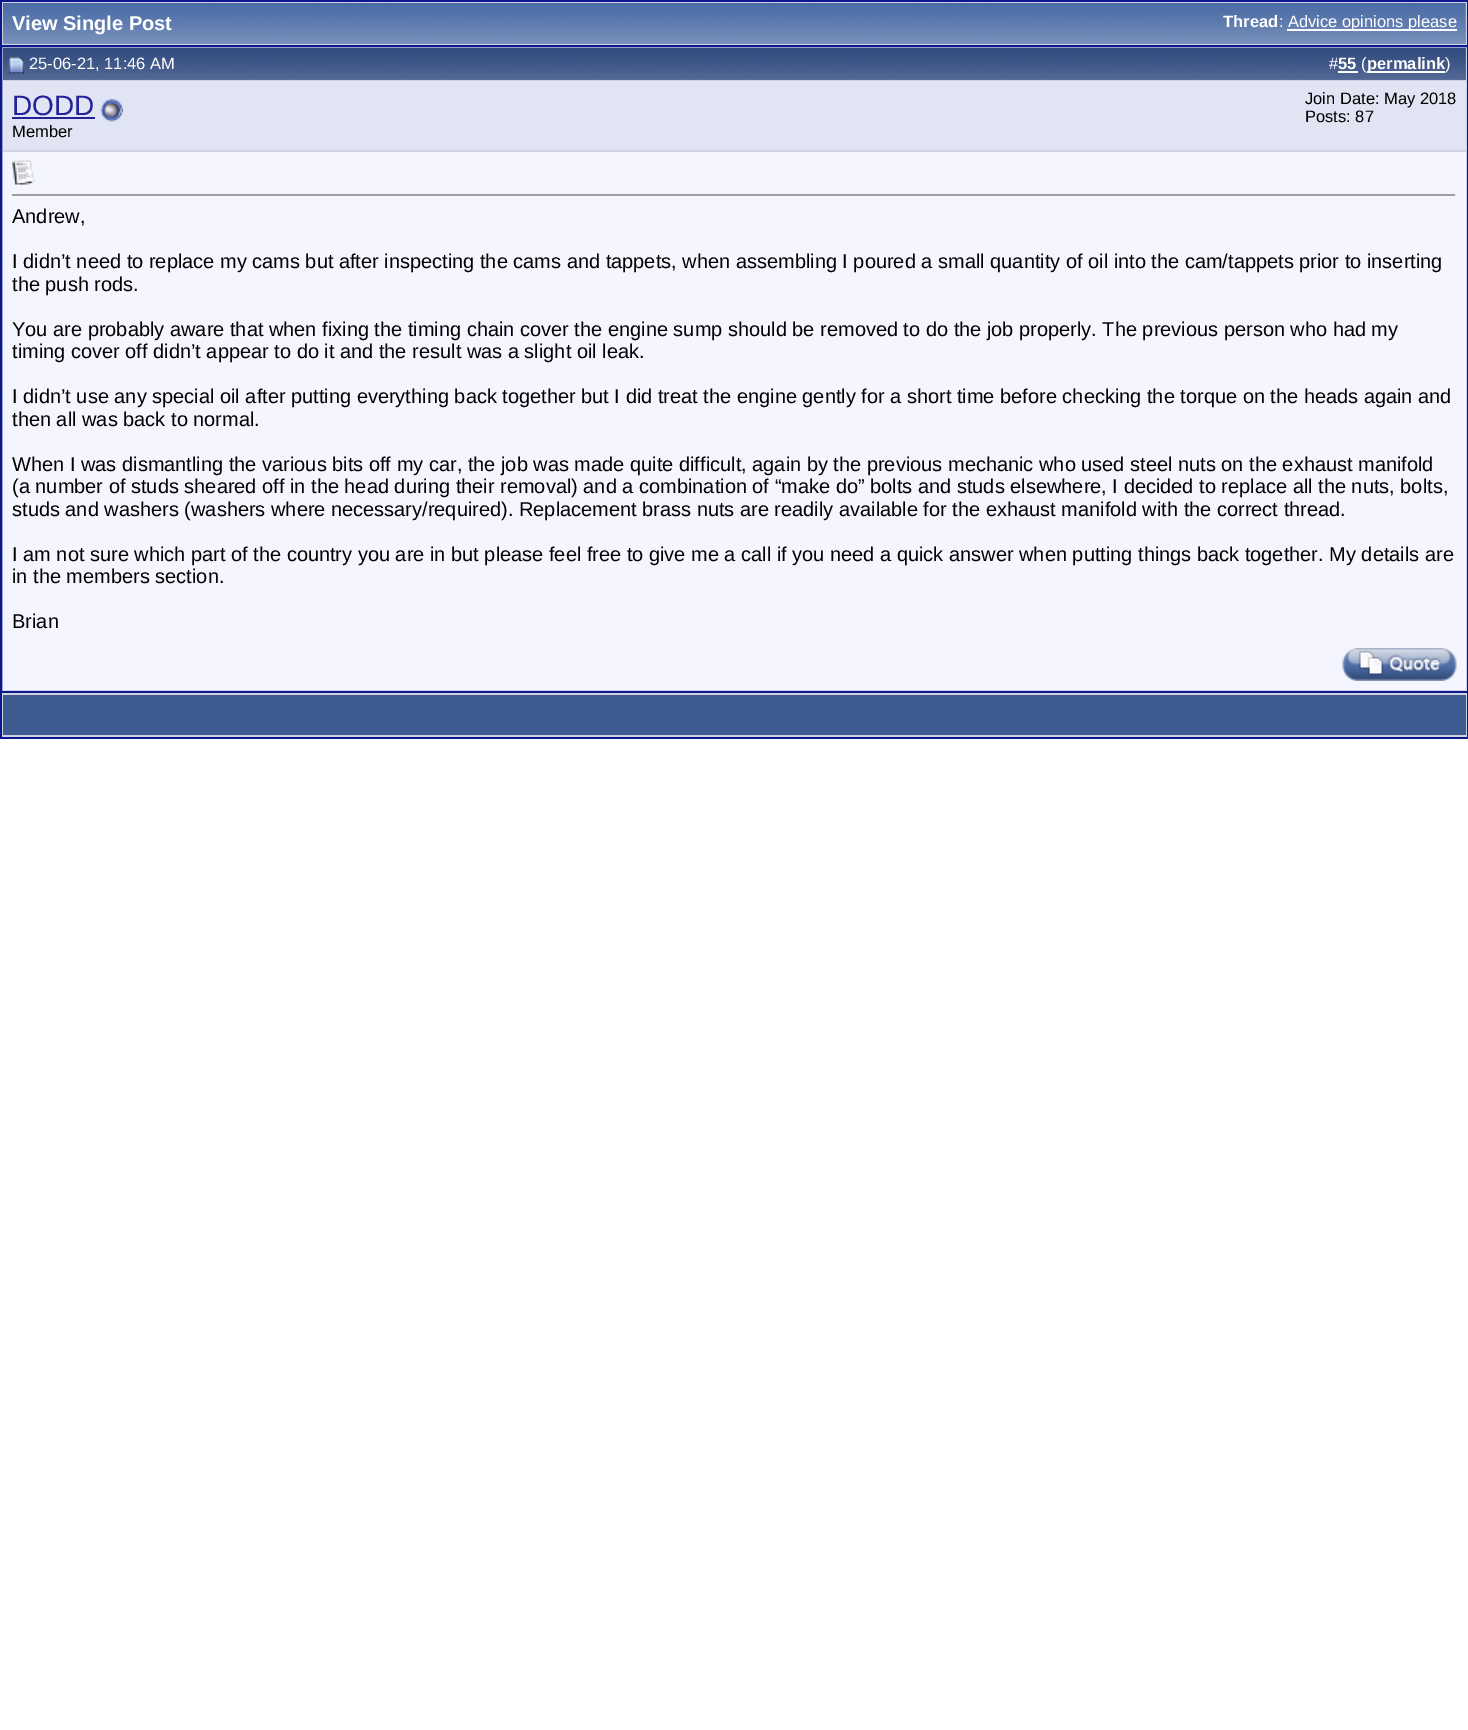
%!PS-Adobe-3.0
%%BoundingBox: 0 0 1468 1730
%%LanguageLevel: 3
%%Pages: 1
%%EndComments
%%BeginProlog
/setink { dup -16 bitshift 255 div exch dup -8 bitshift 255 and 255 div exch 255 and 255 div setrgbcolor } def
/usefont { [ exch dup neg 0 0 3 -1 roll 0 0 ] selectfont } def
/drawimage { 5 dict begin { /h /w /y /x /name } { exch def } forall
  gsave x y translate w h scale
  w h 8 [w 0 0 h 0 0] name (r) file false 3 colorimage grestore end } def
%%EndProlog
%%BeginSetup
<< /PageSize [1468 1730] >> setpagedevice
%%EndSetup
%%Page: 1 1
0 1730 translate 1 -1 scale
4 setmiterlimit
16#FFFFFF setink
0 0 1468 1730 rectfill
[
    [2 2 1465 43 16#D1D1E1]
    [0 0 1468 2 16#0B198C]
    [1467 0 1 45 16#0B198C]
    [0 0 2 45 16#0B198C]
    [3 3 1463 41 16#869BBF]
] { aload pop setink rectfill } forall
(img1.raw) 3 3 1463 41 drawimage
/LiberationSans-Bold 20 usefont
16#FFFFFF setink
12 30 moveto (View Single Post) show
/LiberationSans-Bold 16.5 usefont
1223 27 moveto (Thread) show
/LiberationSans-Regular 16.5 usefont
1279 27 moveto (:) show
1287 29 170 2 rectfill
1288 27 moveto (Advice opinions please) show
16#D1D1E1 setink
1 46 moveto 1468 46 lineto 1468 692 lineto 1 692 lineto closepath gsave fill grestore
16#0B198C setink
2 setlinewidth
stroke
16#5C7099 setink
3 48 1463 32 rectfill
(img2.raw) 3 48 1463 32 drawimage
(img3.raw) 9 57 15 17 drawimage
16#FFFFFF setink
29 69 moveto (25-06-21, 11:46 AM) show
1329 69 moveto (#) show
/LiberationSans-Bold 16.5 usefont
1338 69 moveto (55) show
1338 71 20 2 rectfill
/LiberationSans-Regular 16.5 usefont
1361 69 moveto (\() show
1367 71 78 2 rectfill
/LiberationSans-Bold 16.5 usefont
1367 69 moveto (permalink) show
/LiberationSans-Regular 16.5 usefont
1445 69 moveto (\)) show
16#E1E4F2 setink
3 81 1463 69 rectfill
/LiberationSans-Regular 28 usefont
16#22229C setink
12 115 moveto (DODD) show
12 117 83 2 rectfill
(img4.raw) 100 99 23 23 drawimage
/LiberationSans-Regular 16.5 usefont
16#000000 setink
[
    [(Member) 12 137]
    [(Join Date: May 2018) 1305 104]
    [(Posts: 87) 1305 122]
] { aload pop moveto show } forall
16#F5F5FF setink
3 152 1463 538 rectfill
(img5.raw) 12 160 23 25 drawimage
16#9F9F9F setink
12 194 1445 2 rectfill
16#EEEEEE setink
1455 194 2 2 rectfill
/LiberationSans-Regular 20 usefont
16#000000 setink
[
    [(Andrew,) 12 223]
    [(I didn’t need to replace my cams but after inspecting the cams and tappets, when assembling I poured a small quantity of oil into the cam/tappets prior to inserting) 12 268]
    [(the push rods.) 12 291]
    [(You are probably aware that when fixing the timing chain cover the engine sump should be removed to do the job properly. The previous person who had my) 12 336]
    [(timing cover off didn’t appear to do it and the result was a slight oil leak.) 12 358]
    [(I didn’t use any special oil after putting everything back together but I did treat the engine gently for a short time before checking the torque on the heads again and) 12 403]
    [(then all was back to normal.) 12 426]
    [(When I was dismantling the various bits off my car, the job was made quite difficult, again by the previous mechanic who used steel nuts on the exhaust manifold) 12 471]
    [(\(a number of studs sheared off in the head during their removal\) and a combination of “make do” bolts and studs elsewhere, I decided to replace all the nuts, bolts,) 12 493]
    [(studs and washers \(washers where necessary/required\). Replacement brass nuts are readily available for the exhaust manifold with the correct thread.) 12 516]
    [(I am not sure which part of the country you are in but please feel free to give me a call if you need a quick answer when putting things back together. My details are) 12 561]
    [(in the members section.) 12 583]
    [(Brian) 12 628]
] { aload pop moveto show } forall
(img6.raw) 1342 648 115 33 drawimage
[
    [2 693 1465 44 16#D1D1E1]
    [1467 693 1 45 16#0B198C]
    [0 737 1468 2 16#0B198C]
    [0 693 2 45 16#0B198C]
    [3 695 1463 40 16#3E5C92]
] { aload pop setink rectfill } forall
showpage
%%EOF
